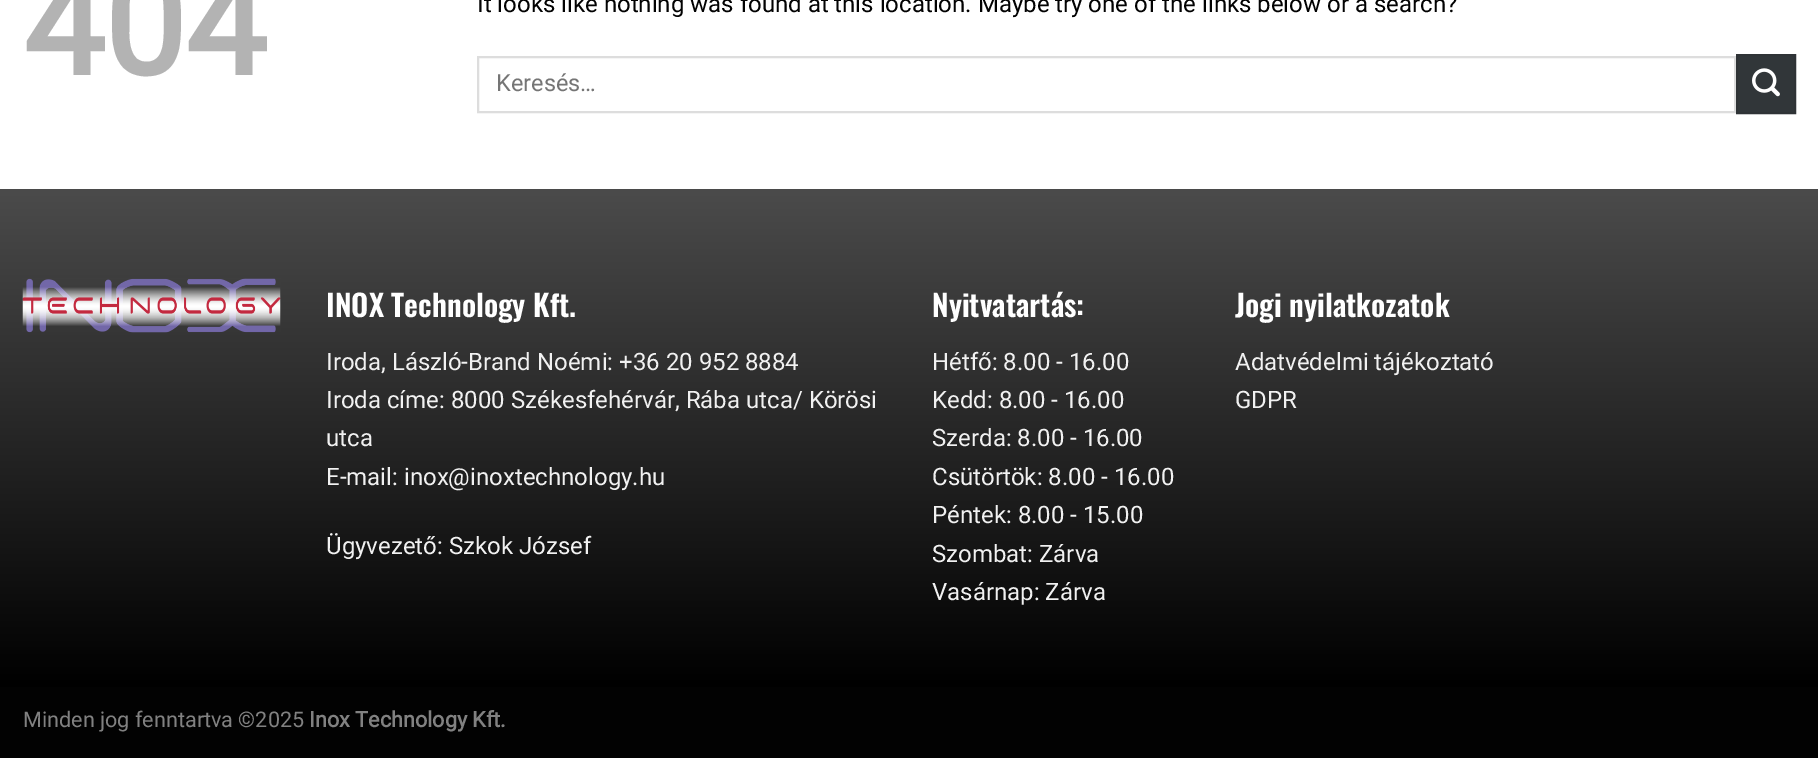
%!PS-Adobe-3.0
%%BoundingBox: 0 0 1818 758
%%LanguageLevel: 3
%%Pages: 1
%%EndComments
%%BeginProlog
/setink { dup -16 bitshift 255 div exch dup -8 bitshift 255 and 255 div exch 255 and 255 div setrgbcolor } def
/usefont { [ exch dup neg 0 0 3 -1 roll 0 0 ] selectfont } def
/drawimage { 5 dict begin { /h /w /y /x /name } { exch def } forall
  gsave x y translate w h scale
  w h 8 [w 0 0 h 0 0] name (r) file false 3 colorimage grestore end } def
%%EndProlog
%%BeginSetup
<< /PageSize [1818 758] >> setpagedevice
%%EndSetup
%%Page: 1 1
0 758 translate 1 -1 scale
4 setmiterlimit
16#FFFFFF setink
0 0 1818 758 rectfill
/Roboto-Bold 144 usefont
16#B3B3B3 setink
23 75 moveto (404) show
/Roboto-Regular 24 usefont
16#020202 setink
477 12 moveto (It looks like nothing was found at this location. Maybe try one of the links below or a search?) show
16#DDDDDD setink
2 setlinewidth
478 57 1257 55 rectstroke
/Roboto-Regular 23.5 usefont
16#757575 setink
496 91 moveto (Keresés…) show
16#313639 setink
1737 55 moveto 1795 55 lineto 1795 113 lineto 1737 113 lineto closepath gsave fill grestore
16#2F3336 setink
stroke
(img1.raw) 1752 68 28 29 drawimage
gsave 0 189 moveto 1818 189 lineto 1818 687 lineto 0 687 lineto closepath clip newpath
<< /ShadingType 2 /ColorSpace /DeviceRGB /Coords [909 189 909 687] /Extend [true true] /Function << /FunctionType 2 /Domain [0 1] /C0 [0.294 0.294 0.294] /C1 [0 0 0] /N 1 >> >> shfill grestore
(img2.raw) 22 278 259 55 drawimage
/Oswald-SemiBold 30 usefont
16#FFFFFF setink
326 317 moveto (INOX Technology Kft.) show
/Roboto-Regular 24 usefont
16#F1F1F1 setink
[
    [(Iroda, László-Brand Noémi: +36 20 952 8884) 326 370]
    [(Iroda címe: 8000 Székesfehérvár, Rába utca/ Körösi) 326 408]
    [(utca) 326 446]
    [(E-mail: inox@inoxtechnology.hu) 326 485]
    [(Ügyvezető: Szkok József) 326 554]
] { aload pop moveto show } forall
/Oswald-SemiBold 30 usefont
16#FFFFFF setink
932 317 moveto (Nyitvatartás:) show
/Roboto-Regular 24 usefont
16#F1F1F1 setink
[
    [(Hétfő: 8.00 - 16.00) 932 370]
    [(Kedd: 8.00 - 16.00) 932 408]
    [(Szerda: 8.00 - 16.00) 932 446]
    [(Csütörtök: 8.00 - 16.00) 932 485]
    [(Péntek: 8.00 - 15.00) 932 523]
    [(Szombat: Zárva) 932 562]
    [(Vasárnap: Zárva) 932 600]
] { aload pop moveto show } forall
/Oswald-SemiBold 30 usefont
16#FFFFFF setink
1235 317 moveto (Jogi nyilatkozatok) show
/Roboto-Regular 24 usefont
16#F1F1F1 setink
1235 370 moveto (Adatvédelmi tájékoztató) show
1235 408 moveto (GDPR) show
16#020202 setink
0 687 1818 71 rectfill
/Roboto-Regular 21.6 usefont
16#818181 setink
23 727 moveto (Minden jog fenntartva ©2025) show
/Roboto-Bold 21.6 usefont
309 727 moveto (Inox Technology Kft.) show
showpage
%%EOF
